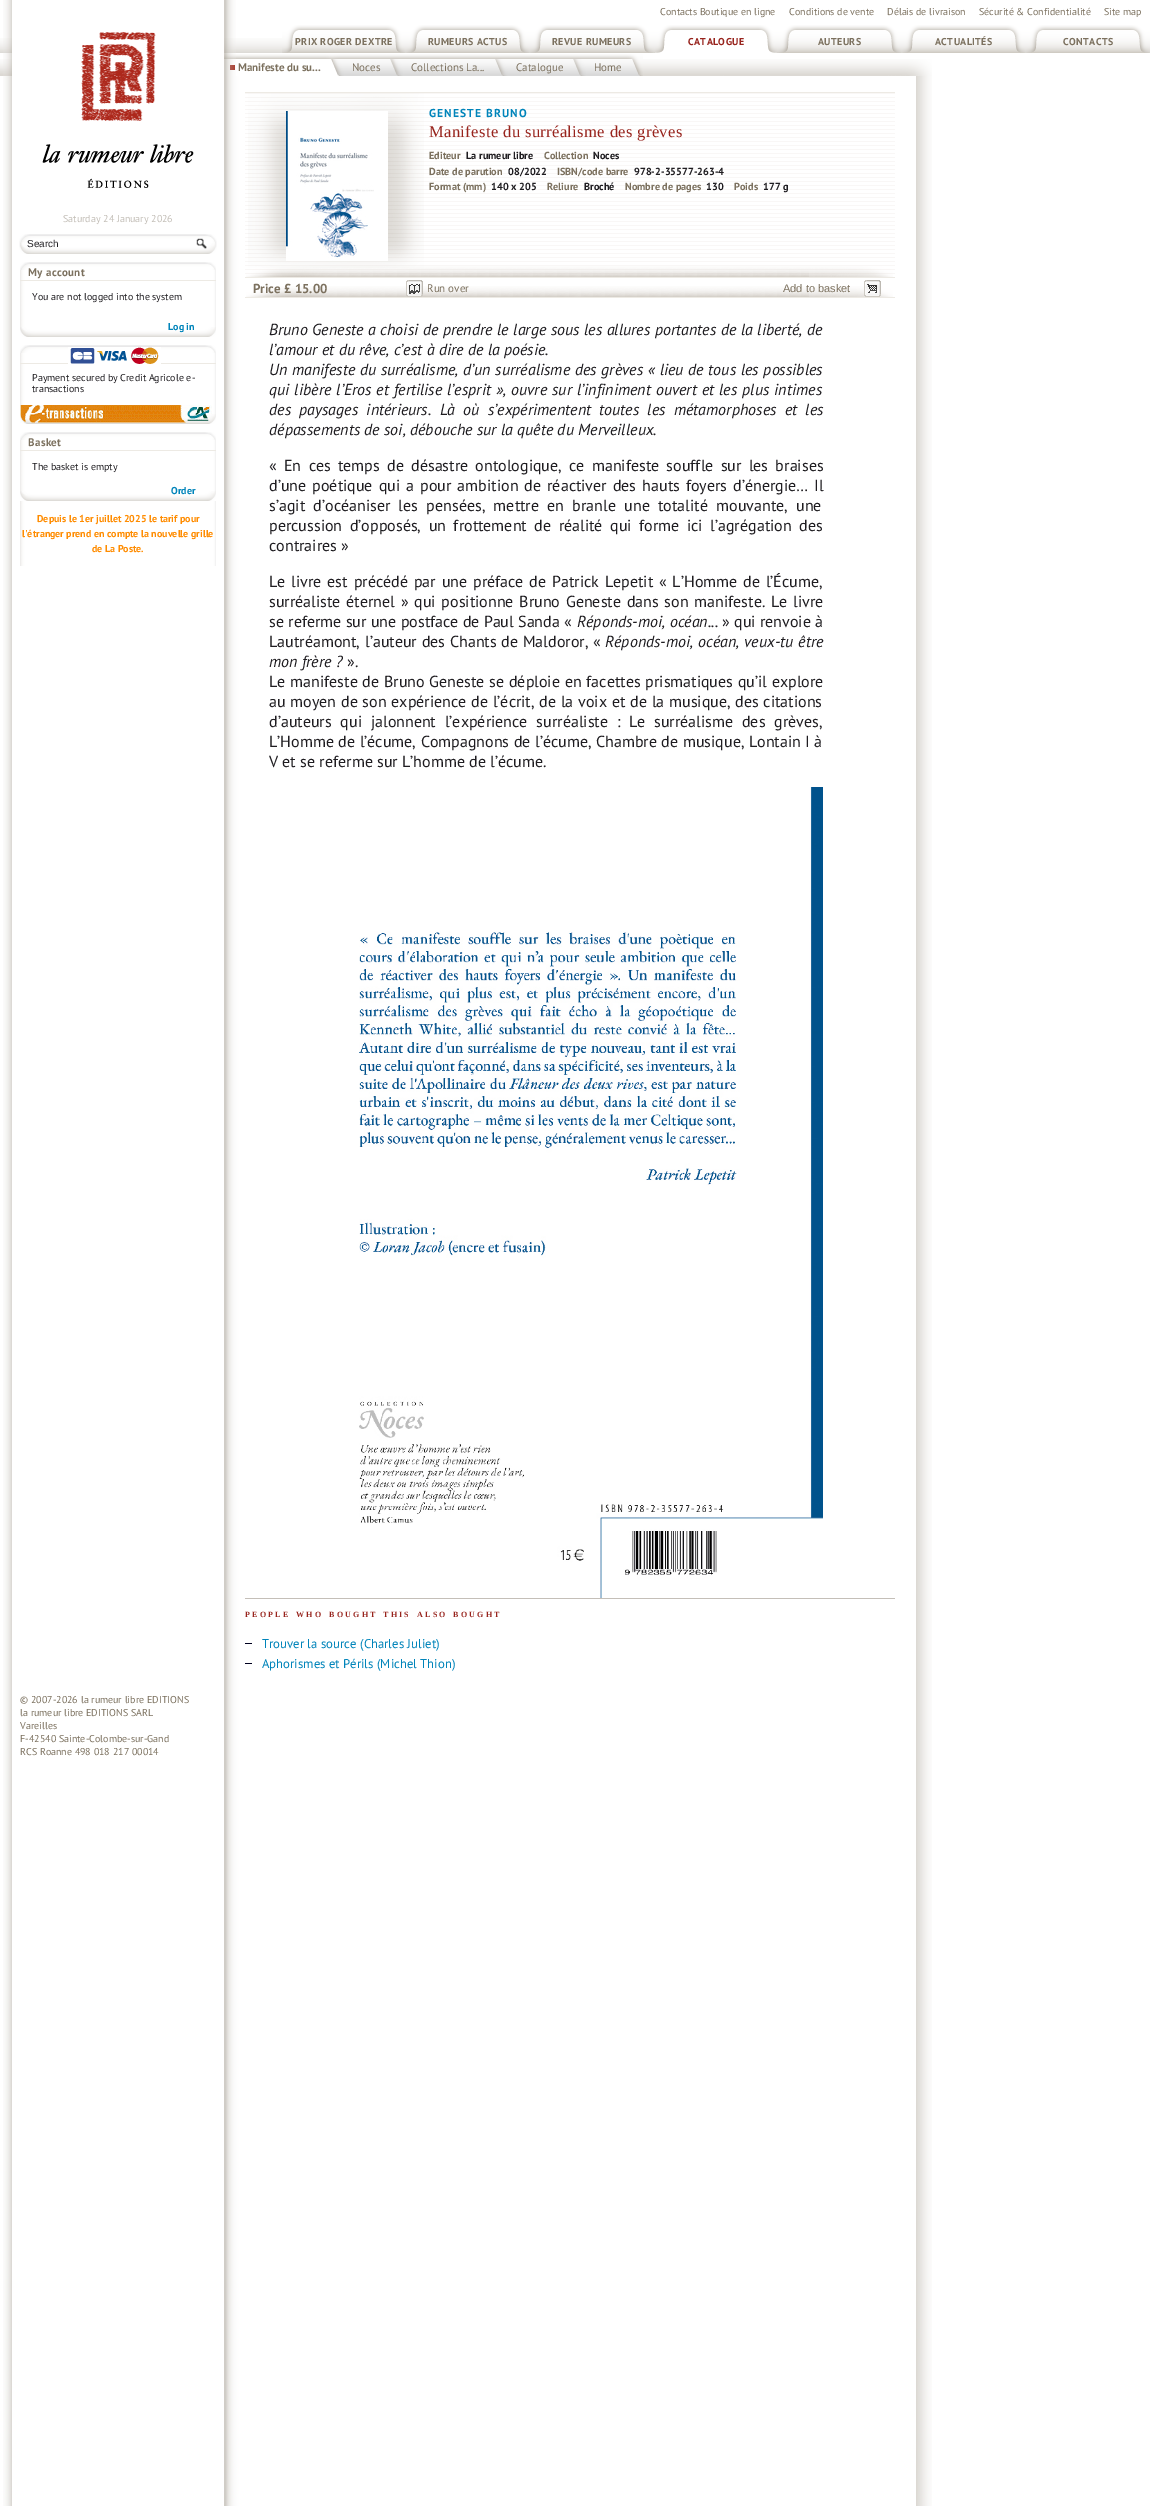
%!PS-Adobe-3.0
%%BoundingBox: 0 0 1150 2506
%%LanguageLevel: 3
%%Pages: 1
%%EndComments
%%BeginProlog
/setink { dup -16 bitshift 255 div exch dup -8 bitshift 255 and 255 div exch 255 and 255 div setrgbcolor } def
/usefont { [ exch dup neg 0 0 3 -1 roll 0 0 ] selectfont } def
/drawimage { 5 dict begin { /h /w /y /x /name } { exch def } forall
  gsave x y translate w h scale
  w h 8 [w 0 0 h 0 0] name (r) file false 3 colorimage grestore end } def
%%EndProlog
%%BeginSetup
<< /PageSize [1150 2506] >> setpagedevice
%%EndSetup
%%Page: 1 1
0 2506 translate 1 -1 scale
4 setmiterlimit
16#FFFFFF setink
0 0 1150 2506 rectfill
(img1.raw) 3 76 929 2430 drawimage
/PTSans-Regular 10 usefont
16#7C715F setink
[
    [(Contacts Boutique en ligne) 660 15]
    [(Conditions de vente) 789 15]
    [(Délais de livraison) 887 15]
    [(Sécurité & Confidentialité) 979 15]
    [(Site map) 1104 15]
] { aload pop moveto show } forall
(img2.raw) 0 38 282 15 drawimage
(img3.raw) 282 25 124 28 drawimage
/PTSans-Bold 10 usefont
295 45 moveto 0.4 0 (PRIX ROGER DEXTRE) ashow
(img3.raw) 406 25 124 28 drawimage
428 45 moveto 0.4 0 (RUMEURS ACTUS) ashow
(img3.raw) 530 25 124 28 drawimage
552 45 moveto 0.4 0 (REVUE RUMEURS) ashow
(img4.raw) 654 25 124 28 drawimage
16#98241D setink
688 45 moveto 0.4 0 (CATALOGUE) ashow
(img3.raw) 778 25 124 28 drawimage
16#7C715F setink
818 45 moveto 0.4 0 (AUTEURS) ashow
(img3.raw) 902 25 124 28 drawimage
935 45 moveto 0.4 0 (ACTUALITÉS) ashow
(img3.raw) 1026 25 124 28 drawimage
1063 45 moveto 0.4 0 (CONTACTS) ashow
(img5.raw) 0 59 932 17 drawimage
(img6.raw) 224 54 120 22 drawimage
16#9D2517 setink
230 65 5 5 rectfill
/PTSans-Bold 11 usefont
16#7C715F setink
238 71 moveto (Manifeste du su...) show
(img7.raw) 344 54 59 22 drawimage
/PTSans-Regular 11 usefont
352 71 moveto (Noces) show
(img8.raw) 403 54 105 22 drawimage
411 71 moveto (Collections La...) show
(img9.raw) 508 54 78 22 drawimage
516 71 moveto (Catalogue) show
(img10.raw) 586 54 57 22 drawimage
594 71 moveto (Home) show
(img11.raw) 3 0 233 188 drawimage
/PTSans-Regular 10 usefont
16#C4BFB8 setink
63 222 moveto (Saturday 24 January 2026) show
(img12.raw) 19 234 198 20 drawimage
/LiberationSans-Regular 10 usefont
16#1F1D21 setink
27 247 moveto (Search) show
(img13.raw) 196 238 11 11 drawimage
(img14.raw) 20 270 196 48 drawimage
(img15.raw) 20 262 196 8 drawimage
16#EDEAE4 setink
20 280 196 1 rectfill
/PTSans-Bold 11 usefont
16#7C715F setink
28 276 moveto 0.35 0 (My account) ashow
/PTSans-Regular 10 usefont
16#1F1D21 setink
32 300 moveto (You are not logged into the system) show
(img16.raw) 20 318 196 19 drawimage
/PTSans-Bold 10 usefont
16#0084BA setink
168 330 moveto (Log in) show
(img17.raw) 20 353 196 52 drawimage
(img15.raw) 20 345 196 8 drawimage
16#EDEAE4 setink
20 363 196 1 rectfill
(img18.raw) 68 347 93 17 drawimage
/PTSans-Regular 10 usefont
16#1F1D21 setink
32 381 moveto (Payment secured by Credit Agricole e-) show
32 392 moveto (transactions) show
(img19.raw) 20 405 196 19 drawimage
(img20.raw) 20 440 196 126 drawimage
(img15.raw) 20 432 196 8 drawimage
16#EDEAE4 setink
20 450 196 1 rectfill
/PTSans-Bold 11 usefont
16#7C715F setink
28 446 moveto 0.35 0 (Basket) ashow
/PTSans-Regular 10 usefont
16#1F1D21 setink
32 470 moveto (The basket is empty) show
(img16.raw) 20 482 196 19 drawimage
/PTSans-Bold 10 usefont
16#0084BA setink
171 494 moveto (Order) show
16#FF8C00 setink
[
    [(Depuis le 1er juillet 2025 le tarif pour) 37 522]
    [(l'étranger prend en compte la nouvelle grille) 22 537]
    [(de La Poste.) 92 552]
] { aload pop moveto show } forall
(img21.raw) 245 93 650 181 drawimage
(img22.raw) 246 266 647 11 drawimage
16#EDEAE4 setink
245 92 650 1 rectfill
(img23.raw) 248 93 176 175 drawimage
(img24.raw) 286 111 102 150 drawimage
/PTSans-Bold 11.5 usefont
16#0084BA setink
429 117 moveto 1.1 0 (GENESTE BRUNO) ashow
/LiberationSerif-Regular 16.6 usefont
16#98241D setink
429 137 moveto 0.35 0 (Manifeste du surréalisme des grèves) ashow
/PTSans-Bold 10.25 usefont
16#7C715F setink
429 159 moveto (Editeur) show
16#1F1D21 setink
466 159 moveto (La rumeur libre) show
16#7C715F setink
544 159 moveto (Collection) show
16#1F1D21 setink
593 159 moveto (Noces) show
16#7C715F setink
429 175 moveto (Date de parution) show
16#1F1D21 setink
508 175 moveto (08/2022) show
16#7C715F setink
557 175 moveto (ISBN/code barre) show
16#1F1D21 setink
634 175 moveto (978-2-35577-263-4) show
16#7C715F setink
429 190 moveto (Format \(mm\)) show
16#1F1D21 setink
491 190 moveto (140 x 205) show
16#7C715F setink
547 190 moveto (Reliure) show
16#1F1D21 setink
584 190 moveto (Broché) show
16#7C715F setink
625 190 moveto (Nombre de pages) show
16#1F1D21 setink
706 190 moveto (130) show
16#7C715F setink
734 190 moveto (Poids) show
16#1F1D21 setink
763 190 moveto (177 g) show
(img25.raw) 246 286 647 11 drawimage
16#EDEAE4 setink
245 277 650 1 rectfill
245 297 650 1 rectfill
/PTSans-Bold 13 usefont
16#7C715F setink
253 293 moveto (Price £ 15.00) show
(img26.raw) 406 280 17 17 drawimage
/PTSans-Regular 11 usefont
427 292 moveto (Run over) show
(img27.raw) 864 280 17 17 drawimage
/LiberationSans-Regular 11 usefont
783 292 moveto (Add to basket) show
/PTSans-Italic 16 usefont
16#1F1D21 setink
269 335 moveto 0.25 0 32 (Bruno Geneste a choisi de prendre le large sous les allures portantes de la liberté, de) widthshow
269 355 moveto (l’amour et du rêve, c’est à dire de la poésie.) show
269 375 moveto 0.4 0 32 (Un manifeste du surréalisme, d’un surréalisme des grèves « lieu de tous les possibles) widthshow
269 395 moveto 0.75 0 32 (qui libère l’Eros et fertilise l’esprit », ouvre sur l’infiniment ouvert et les plus intimes) widthshow
269 415 moveto 4 0 32 (des paysages intérieurs. Là où s’expérimentent toutes les métamorphoses et les) widthshow
269 435 moveto (dépassements de soi, débouche sur la quête du Merveilleux.) show
/PTSans-Regular 16 usefont
269 471 moveto 3 0 32 (« En ces temps de désastre ontologique, ce manifeste souffle sur les braises) widthshow
269 491 moveto 1.75 0 32 (d’une poétique qui a pour ambition de réactiver des hauts foyers d’énergie… Il) widthshow
269 511 moveto 4 0 32 (s’agit d’océaniser les pensées, mettre en branle une totalité mouvante, une) widthshow
269 531 moveto 3.25 0 32 (percussion d’opposés, un frottement de réalité qui forme ici l’agrégation des) widthshow
269 551 moveto (contraires ») show
269 587 moveto 1.6 0 32 (Le livre est précédé par une préface de Patrick Lepetit « L’Homme de l’Écume,) widthshow
269 607 moveto 1.5 0 32 (surréaliste éternel » qui positionne Bruno Geneste dans son manifeste. Le livre) widthshow
269 627 moveto (se referme sur une postface de Paul Sanda «) show
/PTSans-Italic 16 usefont
577 627 moveto (Réponds-moi, océan...) show
/PTSans-Regular 16 usefont
722 627 moveto (» qui renvoie à) show
269 647 moveto 0.5 0 32 (Lautréamont, l’auteur des Chants de Maldoror, «) widthshow
/PTSans-Italic 16 usefont
605 647 moveto 0.5 0 32 (Réponds-moi, océan, veux-tu être) widthshow
269 667 moveto (mon frère ?) show
/PTSans-Regular 16 usefont
347 667 moveto (».) show
269 687 moveto 0.5 0 32 (Le manifeste de Bruno Geneste se déploie en facettes prismatiques qu’il explore) widthshow
269 707 moveto 0.5 0 32 (au moyen de son expérience de l’écrit, de la voix et de la musique, des citations) widthshow
269 727 moveto 4.5 0 32 (d’auteurs qui jalonnent l’expérience surréaliste : Le surréalisme des grèves,) widthshow
269 747 moveto 0.25 0 32 (L’Homme de l’écume, Compagnons de l’écume, Chambre de musique, Lontain I à) widthshow
269 767 moveto (V et se referme sur L’homme de l’écume.) show
(img28.raw) 359 787 464 811 drawimage
16#C4BFB8 setink
245 1598 650 1 rectfill
/LiberationSerif-Bold 8 usefont
16#98241D setink
245 1617 moveto 2.25 0 (PEOPLE) ashow
296 1617 moveto 2.25 0 (WHO) ashow
329 1617 moveto 2.25 0 (BOUGHT) ashow
383 1617 moveto 2.25 0 (THIS) ashow
417 1617 moveto 2.25 0 (ALSO) ashow
453 1617 moveto 2.25 0 (BOUGHT) ashow
16#00001F setink
245 1643 7 1 rectfill
/PTSans-Regular 12.75 usefont
16#0084BA setink
262 1648 moveto (Trouver la source \(Charles Juliet\)) show
16#00001F setink
245 1663 7 1 rectfill
16#0084BA setink
262 1668 moveto (Aphorismes et Périls \(Michel Thion\)) show
/PTSans-Regular 10 usefont
16#7C715F setink
[
    [(© 2007-2026 la rumeur libre EDITIONS) 20 1703]
    [(la rumeur libre EDITIONS SARL) 20 1716]
    [(Vareilles) 20 1729]
    [(F-42540 Sainte-Colombe-sur-Gand) 20 1742]
    [(RCS Roanne 498 018 217 00014) 20 1755]
] { aload pop moveto show } forall
showpage
%%EOF
